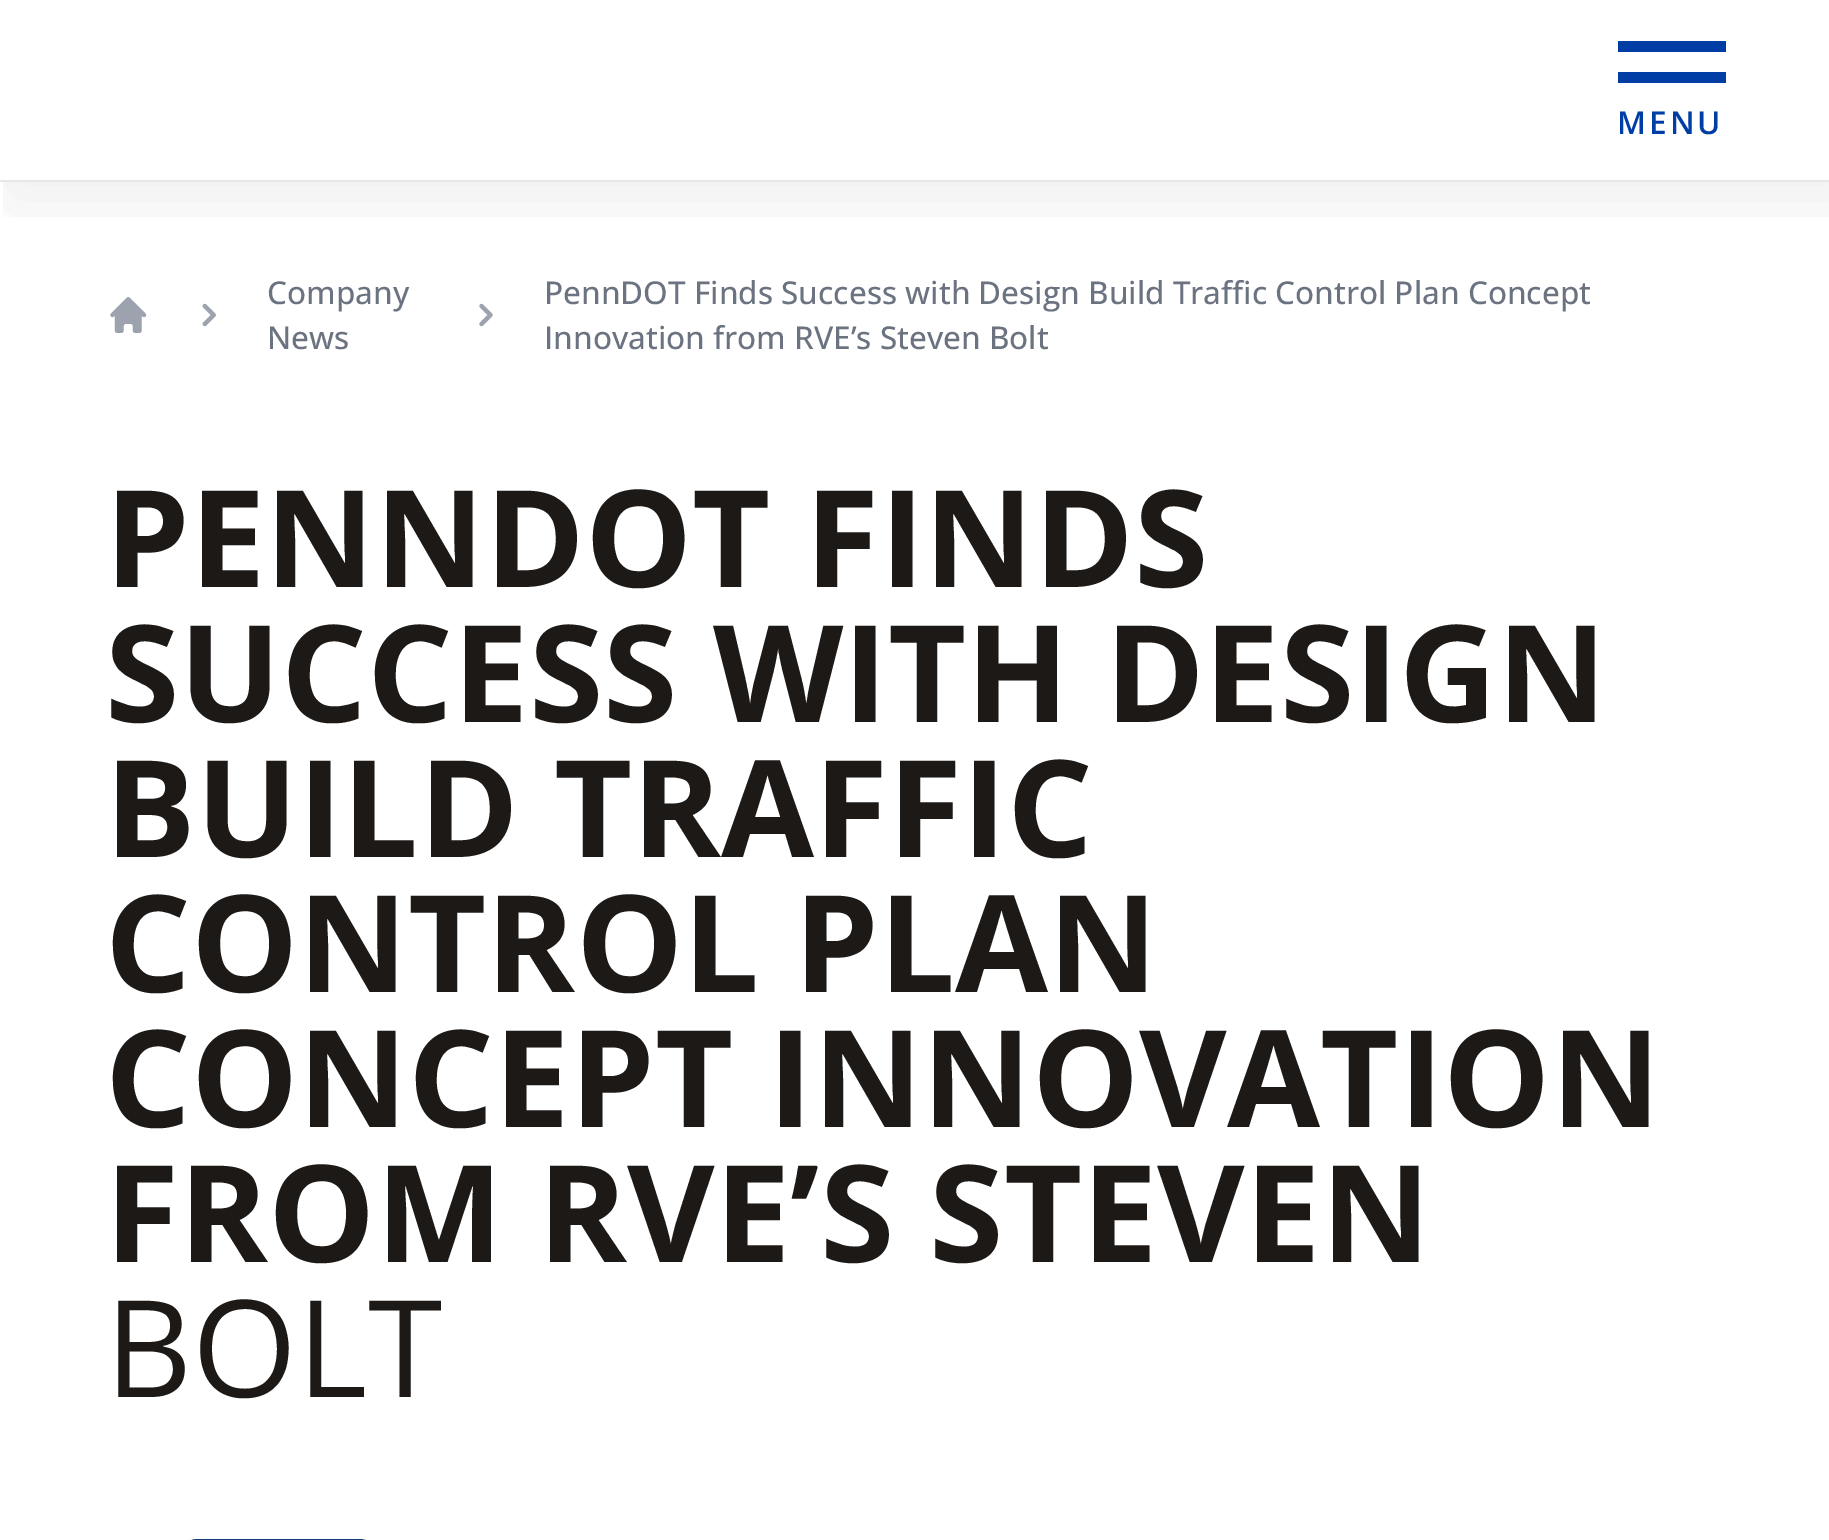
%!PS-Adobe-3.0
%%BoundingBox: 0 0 1829 1540
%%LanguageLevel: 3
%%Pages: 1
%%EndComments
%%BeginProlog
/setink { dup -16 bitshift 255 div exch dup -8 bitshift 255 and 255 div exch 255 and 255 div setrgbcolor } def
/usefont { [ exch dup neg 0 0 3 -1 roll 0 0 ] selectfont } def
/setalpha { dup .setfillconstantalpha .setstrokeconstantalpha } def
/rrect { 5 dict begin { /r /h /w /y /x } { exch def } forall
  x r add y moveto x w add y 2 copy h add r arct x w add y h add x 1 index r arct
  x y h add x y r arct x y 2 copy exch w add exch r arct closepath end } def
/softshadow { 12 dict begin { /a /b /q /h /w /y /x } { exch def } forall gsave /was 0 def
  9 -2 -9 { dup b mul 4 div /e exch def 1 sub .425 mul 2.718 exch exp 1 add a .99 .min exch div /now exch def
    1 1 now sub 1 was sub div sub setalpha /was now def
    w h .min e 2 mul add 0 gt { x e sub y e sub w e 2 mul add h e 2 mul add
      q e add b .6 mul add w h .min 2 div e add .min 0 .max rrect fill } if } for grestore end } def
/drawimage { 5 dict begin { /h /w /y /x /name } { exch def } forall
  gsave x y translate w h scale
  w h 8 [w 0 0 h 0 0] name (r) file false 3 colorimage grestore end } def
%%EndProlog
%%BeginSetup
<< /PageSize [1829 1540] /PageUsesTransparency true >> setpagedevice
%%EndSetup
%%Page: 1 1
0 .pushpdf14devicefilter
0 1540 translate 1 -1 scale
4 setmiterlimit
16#FFFFFF setink
0 0 1829 1540 rectfill
gsave
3 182 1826 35 rectclip
16#1D1D1D setink
11 11 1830 183 0 34 0.08 softshadow
grestore
[
    [0 180 1829 2 16#E5E7EB]
    [1618 41 108 11 16#003DA5]
    [1618 72 108 11 16#003DA5]
] { aload pop setink rectfill } forall
/OpenSans-SemiBold 31.5 usefont
1617 134 moveto 3 0 (MENU) ashow
(img1.raw) 110 297 37 36 drawimage
(img2.raw) 202 303 14 24 drawimage
/OpenSans-Medium 31.5 usefont
16#6B7280 setink
267 304 moveto (Company) show
267 349 moveto (News) show
(img3.raw) 479 303 14 24 drawimage
544 304 moveto (PennDOT Finds Success with Design Build Traffic Control Plan Concept) show
544 349 moveto (Innovation from RVE’s Steven Bolt) show
/OpenSans-Bold 135 usefont
16#1C1917 setink
[
    [(PENNDOT FINDS) 105 587]
    [(SUCCESS WITH DESIGN) 105 722]
    [(BUILD TRAFFIC) 105 857]
    [(CONTROL PLAN) 105 992]
    [(CONCEPT INNOVATION) 105 1127]
    [(FROM RVE’S STEVEN) 105 1262]
] { aload pop moveto show } forall
/OpenSans-Regular 135 usefont
105 1397 moveto (BOLT) show
(img4.raw) 188 1539 179 1 drawimage
.poppdf14devicefilter showpage
%%EOF
